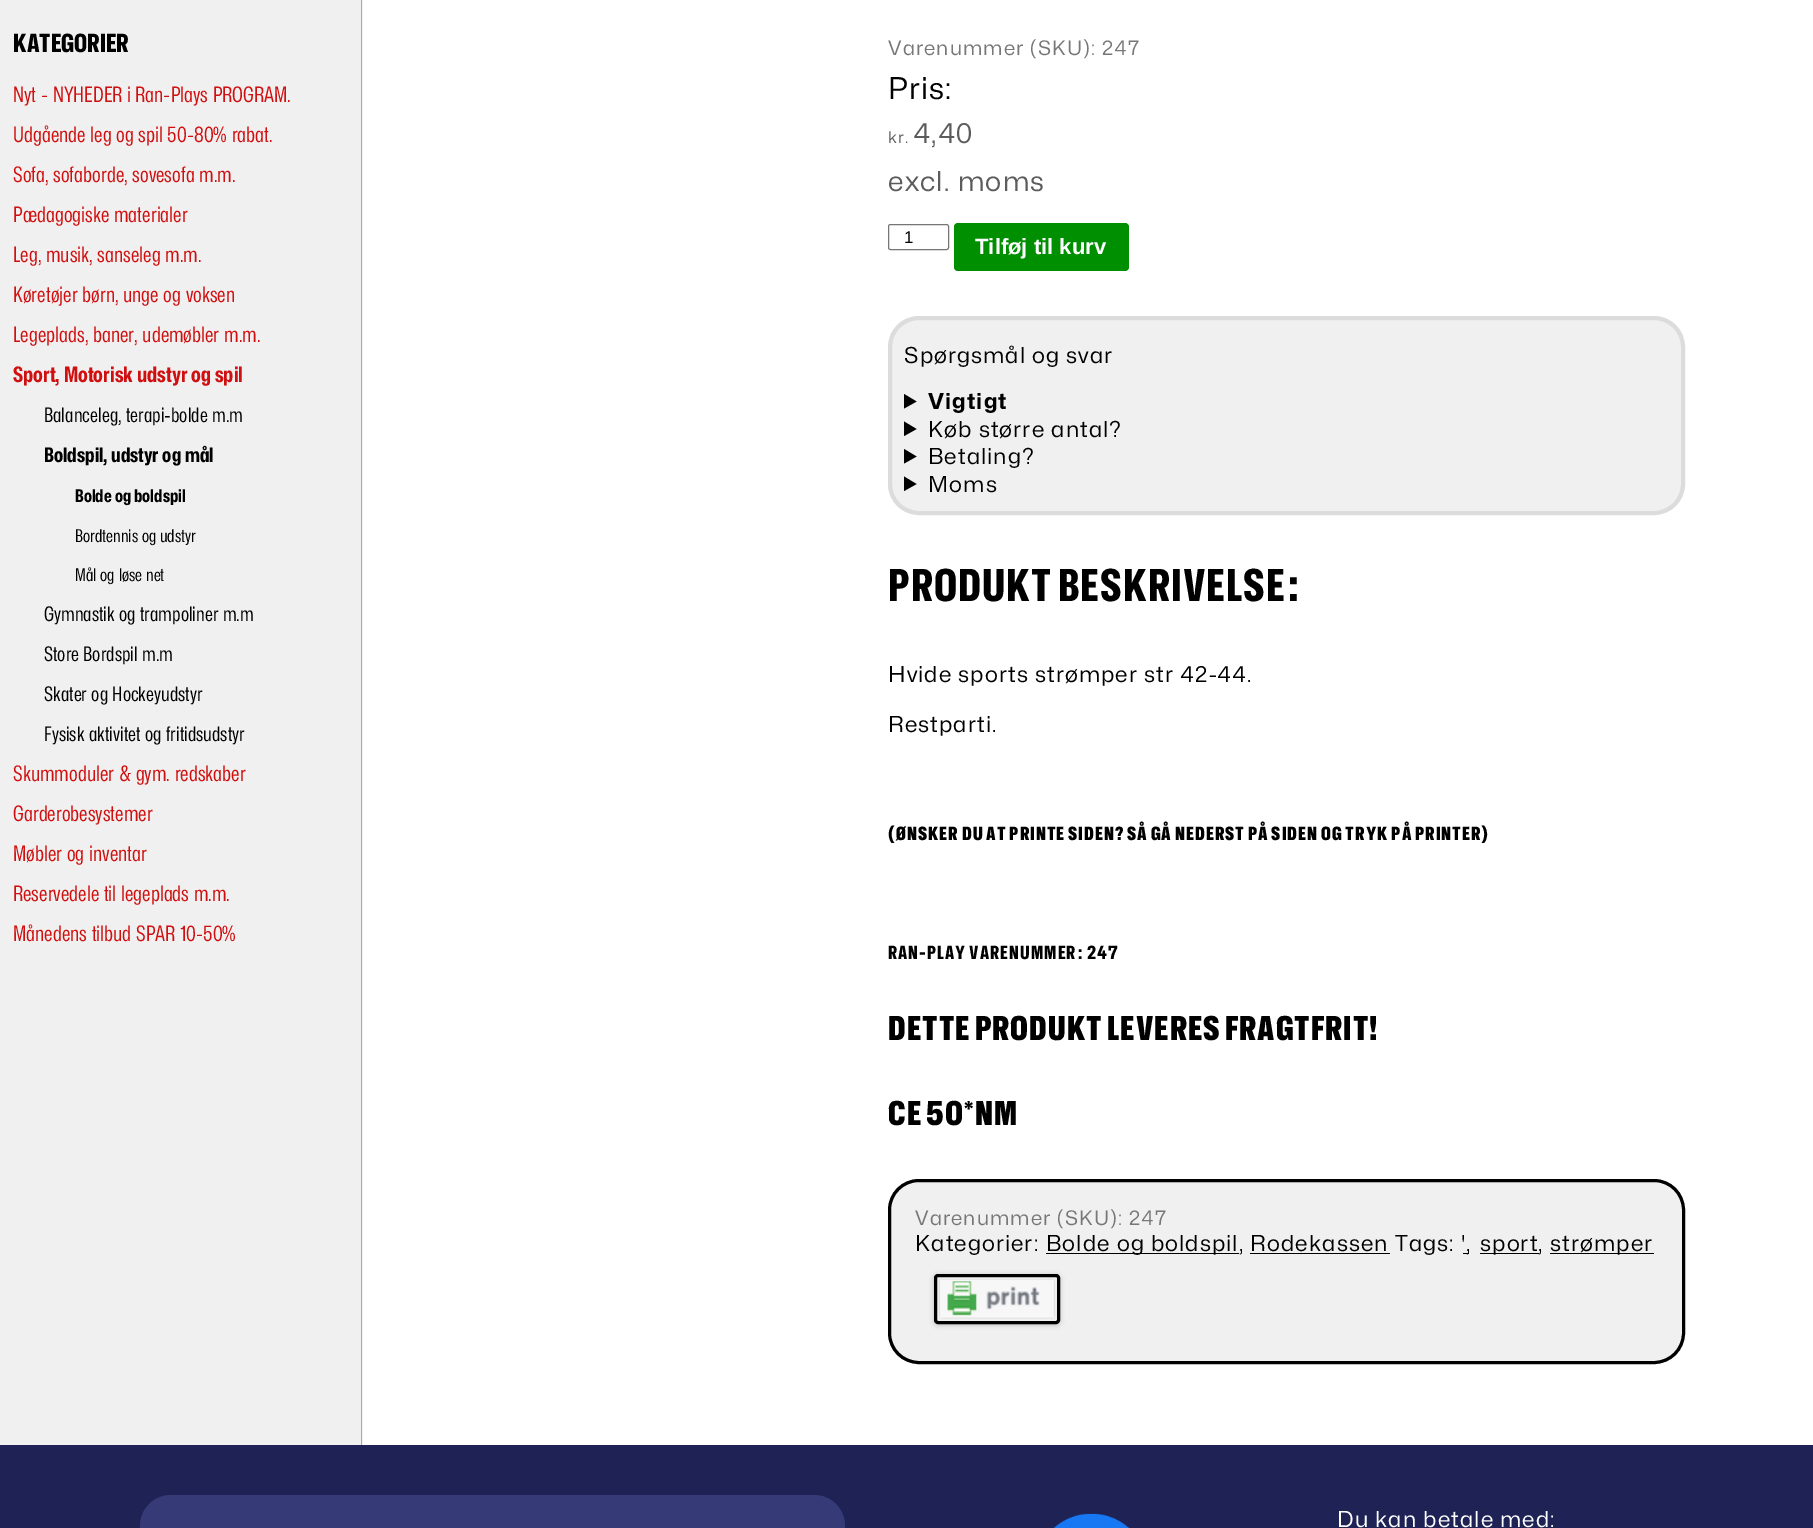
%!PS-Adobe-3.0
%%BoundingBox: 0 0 1813 1528
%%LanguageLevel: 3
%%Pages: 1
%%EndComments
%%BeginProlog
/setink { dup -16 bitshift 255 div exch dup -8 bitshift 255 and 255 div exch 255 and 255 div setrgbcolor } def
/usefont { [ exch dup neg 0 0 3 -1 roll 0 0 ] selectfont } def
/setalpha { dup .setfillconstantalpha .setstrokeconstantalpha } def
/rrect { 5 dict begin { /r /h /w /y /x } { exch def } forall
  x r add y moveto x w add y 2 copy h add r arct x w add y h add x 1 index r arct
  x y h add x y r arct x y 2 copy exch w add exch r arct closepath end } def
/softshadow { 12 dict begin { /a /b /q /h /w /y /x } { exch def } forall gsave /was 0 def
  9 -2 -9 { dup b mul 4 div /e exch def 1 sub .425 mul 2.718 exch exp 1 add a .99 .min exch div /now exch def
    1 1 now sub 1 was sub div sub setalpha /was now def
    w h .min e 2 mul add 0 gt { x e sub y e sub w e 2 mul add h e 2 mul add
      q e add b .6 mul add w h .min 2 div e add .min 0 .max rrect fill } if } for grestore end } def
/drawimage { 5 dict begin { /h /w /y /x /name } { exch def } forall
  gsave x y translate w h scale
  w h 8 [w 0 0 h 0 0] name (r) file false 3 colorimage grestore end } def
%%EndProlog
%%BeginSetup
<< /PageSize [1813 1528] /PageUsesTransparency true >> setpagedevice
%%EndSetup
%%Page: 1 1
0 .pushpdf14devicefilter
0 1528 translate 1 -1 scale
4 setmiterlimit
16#FFFFFF setink
0 0 1813 1528 rectfill
16#F0F0F0 setink
0 0 363 1445 rectfill
16#AAAAAA setink
361 0 1 1445 rectfill
/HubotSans-ExtraBold 25 usefont
16#000000 setink
13 52 moveto (KATEGORIER) show
/MonaSans-Regular 21.25 usefont
16#D01010 setink
[
    [(Nyt - NYHEDER i Ran-Plays PROGRAM.) 13 102]
    [(Udgående leg og spil 50-80% rabat.) 13 142]
    [(Sofa, sofaborde, sovesofa m.m.) 13 182]
    [(Pædagogiske materialer) 13 222]
    [(Leg, musik, sanseleg m.m.) 13 262]
    [(Køretøjer børn, unge og voksen) 13 302]
    [(Legeplads, baner, udemøbler m.m.) 13 342]
] { aload pop moveto show } forall
/MonaSans-Bold 21.25 usefont
13 382 moveto (Sport, Motorisk udstyr og spil) show
/MonaSans-Regular 20 usefont
16#000000 setink
44 422 moveto (Balanceleg, terapi-bolde m.m) show
/MonaSans-Bold 20 usefont
44 462 moveto (Boldspil, udstyr og mål) show
/MonaSans-Bold 17.5 usefont
75 502 moveto (Bolde og boldspil) show
/MonaSans-Regular 17.5 usefont
75 542 moveto (Bordtennis og udstyr) show
75 581 moveto (Mål og løse net) show
/MonaSans-Regular 20 usefont
[
    [(Gymnastik og trampoliner m.m) 44 621]
    [(Store Bordspil m.m) 44 661]
    [(Skater og Hockeyudstyr) 44 701]
    [(Fysisk aktivitet og fritidsudstyr) 44 741]
] { aload pop moveto show } forall
/MonaSans-Regular 21.25 usefont
16#D01010 setink
[
    [(Skummoduler & gym. redskaber) 13 781]
    [(Garderobesystemer) 13 821]
    [(Møbler og inventar) 13 861]
    [(Reservedele til legeplads m.m.) 13 901]
    [(Månedens tilbud SPAR 10-50%) 13 941]
] { aload pop moveto show } forall
/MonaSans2-Regular 20 usefont
16#777777 setink
888 55 moveto 1.1 0 (Varenummer \(SKU\): 247) ashow
/MonaSans2-Regular 30 usefont
16#000000 setink
888 99 moveto 1.1 0 (Pris:) ashow
/MonaSans2-Regular 16 usefont
16#5C5C5C setink
888 143 moveto 1.1 0 (kr.) ashow
/MonaSans2-Regular 27.5 usefont
913 143 moveto 1.1 0 (4,40) ashow
888 191 moveto 1.1 0 (excl. moms) ashow
16#767676 setink
888.5 224.5 60 25 2 rrect stroke
/LiberationSans-Regular 17 usefont
16#000000 setink
904 243 moveto (1) show
16#008F00 setink
954 223 175 48 4 rrect fill
/LiberationSans-Bold 22 usefont
16#FFFFFF setink
975 254 moveto (Tilføj til kurv) show
16#F0F0F0 setink
890 318 793 195 29 rrect gsave fill grestore
16#DCDCDC setink
4 setlinewidth
stroke
/MonaSans2-Regular 22 usefont
16#000000 setink
904 363 moveto 1.1 0 (Spørgsmål og svar) ashow
904 394 moveto 916.5 401.5 lineto 904 408.5 lineto closepath fill
/MonaSans2-Bold 22 usefont
928 409 moveto 1.1 0 (Vigtigt) ashow
904 421.5 moveto 916.5 429 lineto 904 436 lineto closepath fill
/MonaSans2-Regular 22 usefont
928 437 moveto 1.1 0 (Køb større antal?) ashow
904 449 moveto 916.5 456.5 lineto 904 463.5 lineto closepath fill
928 464 moveto 1.1 0 (Betaling?) ashow
904 476.5 moveto 916.5 484 lineto 904 491 lineto closepath fill
928 492 moveto 1.1 0 (Moms) ashow
/HubotSans-ExtraBold 44 usefont
888 601 moveto 1.1 0 (PRODUKT BESKRIVELSE:) ashow
/MonaSans2-Regular 22 usefont
888 682 moveto 1.1 0 (Hvide sports strømper str 42-44.) ashow
888 732 moveto 1.1 0 (Restparti.) ashow
/HubotSans-Black 18.25 usefont
888 840 moveto 1.1 0 (\(ØNSKER DU AT PRINTE SIDEN? SÅ GÅ NEDERST PÅ SIDEN OG TRYK PÅ PRINTER\)) ashow
/HubotSans-ExtraBold 18.25 usefont
888 959 moveto 1.1 0 (RAN-PLAY VARENUMMER: 247) ashow
/HubotSans-Black 33 usefont
888 1040 moveto 1.1 0 (DETTE PRODUKT LEVERES FRAGTFRIT!) ashow
888 1125 moveto 1.1 0 (CE 50*NM) ashow
16#F0F0F0 setink
889.5 1180.5 794 182 29.5 rrect gsave fill grestore
16#000000 setink
3 setlinewidth
stroke
/MonaSans2-Regular 20 usefont
16#777777 setink
915 1225 moveto 1.1 0 (Varenummer \(SKU\): 247) ashow
/MonaSans2-Regular 22 usefont
16#000000 setink
915 1251 moveto 1.1 0 (Kategorier:) ashow
1046 1253 193 1 rectfill
1046 1251 moveto 1.1 0 (Bolde og boldspil, Rodekassen Tags: ',) ashow
1250 1253 140 1 rectfill
1480 1253 59 1 rectfill
1480 1251 moveto 1.1 0 (sport,) ashow
1463 1253 6 1 rectfill
1550 1253 104 1 rectfill
1550 1251 moveto 1.1 0 (strømper) ashow
gsave
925 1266 moveto 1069 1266 lineto 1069 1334 lineto 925 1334 lineto closepath 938 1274 moveto 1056 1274 lineto 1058 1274 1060 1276 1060 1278 curveto 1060 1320 lineto 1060 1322 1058 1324 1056 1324 curveto 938 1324 lineto 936 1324 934 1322 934 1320 curveto 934 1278 lineto 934 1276 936 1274 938 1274 curveto closepath eoclip newpath
934 1275 126 50 4 2.5 0.2 softshadow
grestore
935.5 1275.5 123 47 2.5 rrect stroke
(img1.raw) 939 1279 116 40 drawimage
16#1E2254 setink
0 1445 1813 83 rectfill
16#363B77 setink
140 1495 705 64 31 rrect fill
(img2.raw) 1053 1513 77 15 drawimage
16#FFFFFF setink
1337 1527 moveto 1.1 0 (Du kan betale med:) ashow
.poppdf14devicefilter showpage
%%EOF
